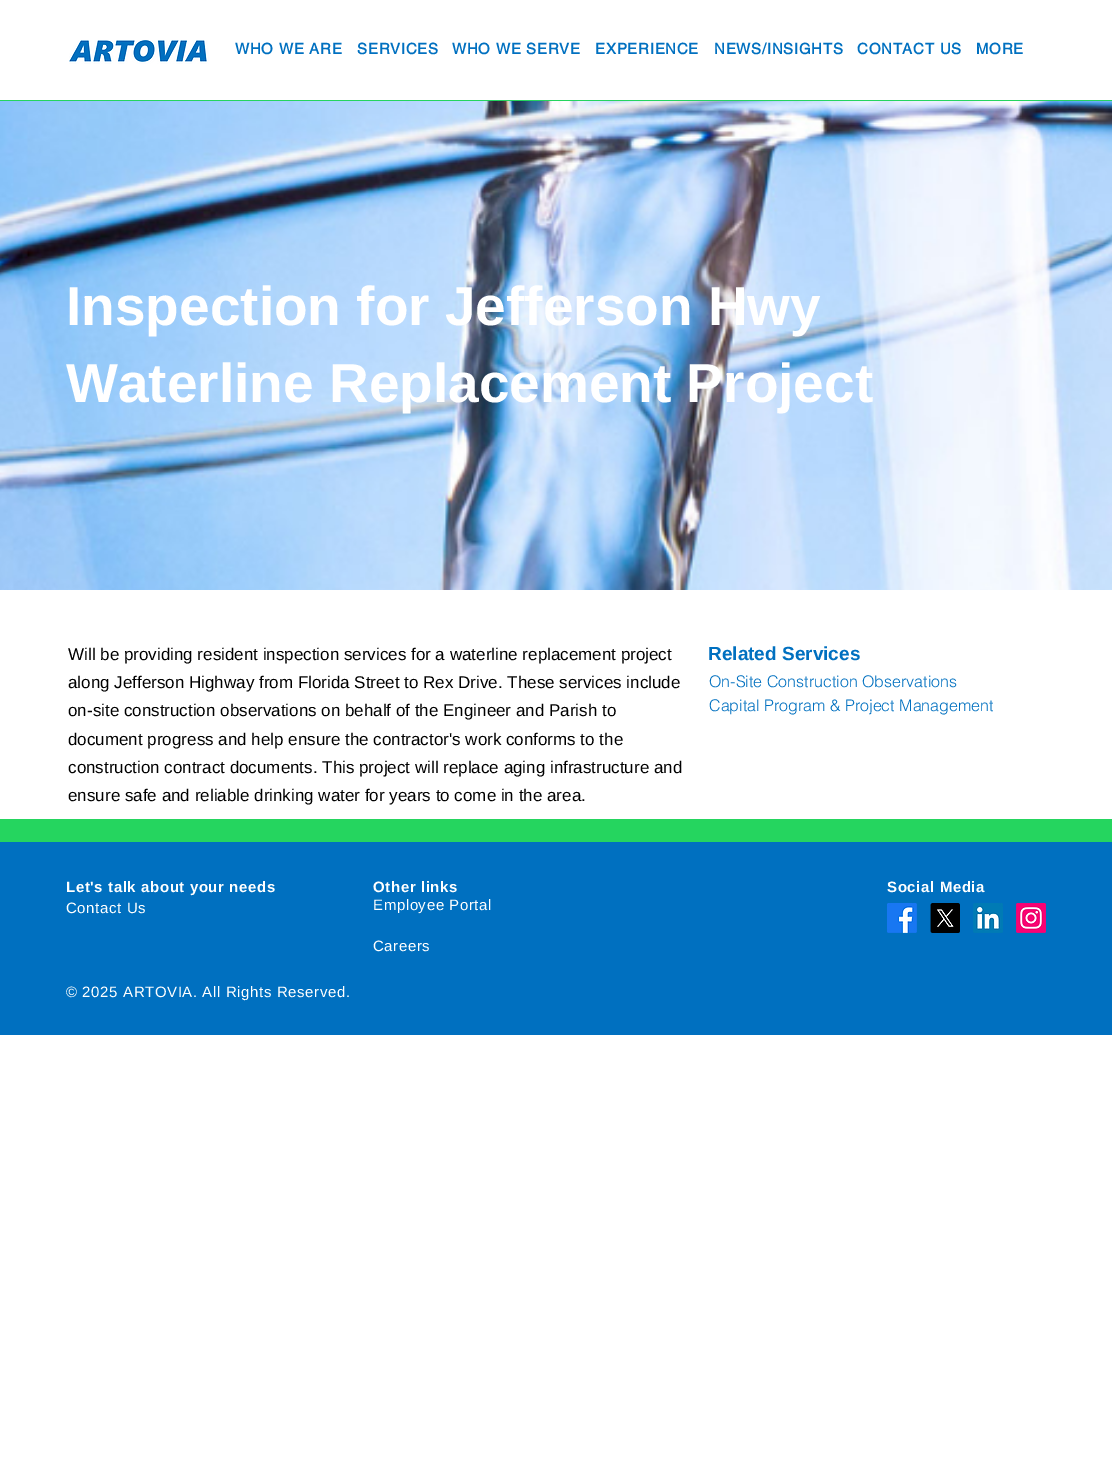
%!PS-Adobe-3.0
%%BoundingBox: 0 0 1112 1476
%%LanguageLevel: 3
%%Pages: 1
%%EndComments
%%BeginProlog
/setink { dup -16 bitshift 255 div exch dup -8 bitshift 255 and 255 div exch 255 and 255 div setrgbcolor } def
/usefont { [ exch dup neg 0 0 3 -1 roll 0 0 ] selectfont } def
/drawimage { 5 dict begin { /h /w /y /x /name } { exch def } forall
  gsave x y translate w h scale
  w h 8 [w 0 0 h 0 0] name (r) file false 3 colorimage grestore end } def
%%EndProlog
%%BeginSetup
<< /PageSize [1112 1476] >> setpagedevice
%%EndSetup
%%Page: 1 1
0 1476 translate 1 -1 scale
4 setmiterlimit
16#FFFFFF setink
0 0 1112 1476 rectfill
(img1.raw) 69 40 140 24 drawimage
/helvetica-Bold 15 usefont
16#0070C0 setink
235 54 moveto 0.75 0 (WHO WE ARE) ashow
357 54 moveto 0.75 0 (SERVICES) ashow
452 54 moveto 0.75 0 (WHO WE SERVE) ashow
595 54 moveto 0.75 0 (EXPERIENCE) ashow
714 54 moveto 0.75 0 (NEWS/INSIGHTS) ashow
857 54 moveto 0.75 0 (CONTACT US) ashow
976 54 moveto 0.75 0 (MORE) ashow
16#25D55F setink
0 100 1112 1 rectfill
(img2.raw) 0 101 1112 489 drawimage
/LiberationSans-Bold 55 usefont
16#FFFFFF setink
66 325 moveto (Inspection for Jefferson Hwy) show
66 402 moveto (Waterline Replacement Project) show
/LiberationSans-Regular 17 usefont
16#000000 setink
[
    [(Will be providing resident inspection services for a waterline replacement project) 68 660]
    [(along Jefferson Highway from Florida Street to Rex Drive. These services include) 68 688]
    [(on-site construction observations on behalf of the Engineer and Parish to) 68 716]
    [(document progress and help ensure the contractor's work conforms to the) 68 745]
    [(construction contract documents. This project will replace aging infrastructure and) 68 773]
    [(ensure safe and reliable drinking water for years to come in the area.) 68 801]
] { aload pop moveto show } forall
/LiberationSans-Bold 19 usefont
16#0070C0 setink
708 660 moveto (Related Services) show
/helvetica-Light 16 usefont
709 687 moveto (On-Site Construction Observations) show
709 711 moveto (Capital Program & Project Management) show
0 842 1112 193 rectfill
16#25D55F setink
0 819 1112 23 rectfill
/LiberationSans-Bold 15 usefont
16#FFFFFF setink
66 892 moveto 0.6 0 (Let's talk about your needs) ashow
373 892 moveto 0.6 0 (Other links) ashow
887 892 moveto 0.6 0 (Social Media) ashow
/LiberationSans-Regular 15 usefont
66 913 moveto 0.6 0 (Contact Us) ashow
373 910 moveto 0.6 0 (Employee Portal) ashow
(img3.raw) 887 903 30 30 drawimage
(img4.raw) 930 903 30 30 drawimage
(img5.raw) 973 903 30 30 drawimage
(img6.raw) 1016 903 30 30 drawimage
373 951 moveto 0.6 0 (Careers) ashow
66 997 moveto 0.6 0 (© 2025 ARTOVIA. All Rights Reserved.) ashow
showpage
%%EOF
